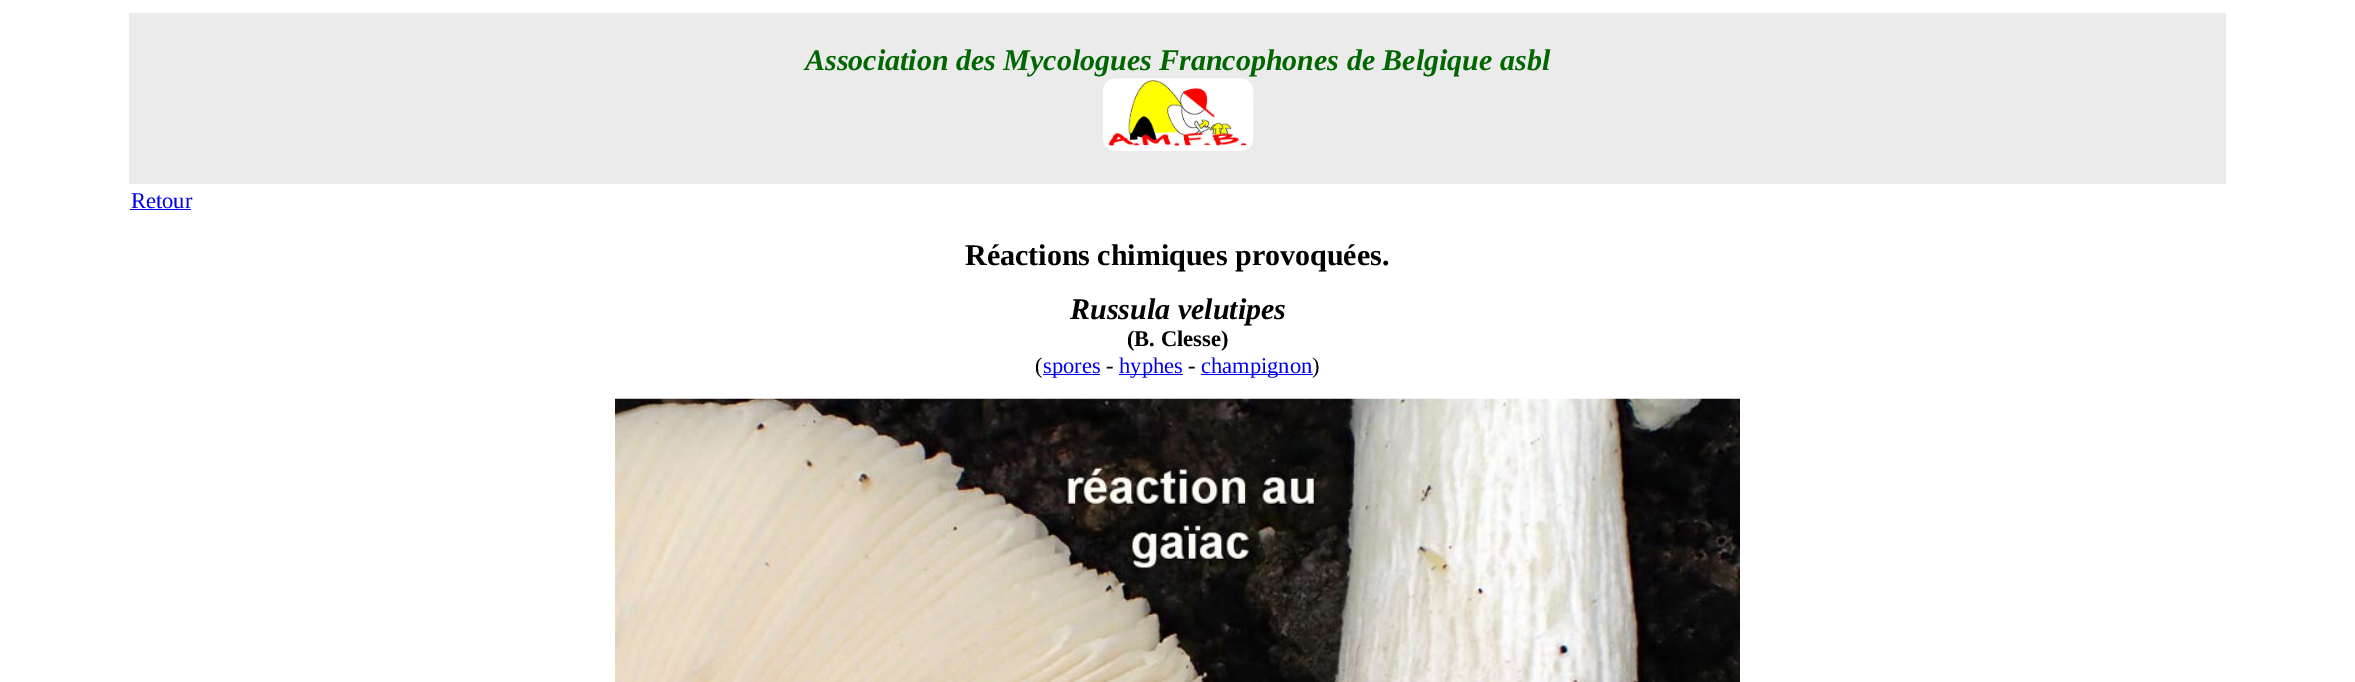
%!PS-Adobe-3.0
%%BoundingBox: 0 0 2355 682
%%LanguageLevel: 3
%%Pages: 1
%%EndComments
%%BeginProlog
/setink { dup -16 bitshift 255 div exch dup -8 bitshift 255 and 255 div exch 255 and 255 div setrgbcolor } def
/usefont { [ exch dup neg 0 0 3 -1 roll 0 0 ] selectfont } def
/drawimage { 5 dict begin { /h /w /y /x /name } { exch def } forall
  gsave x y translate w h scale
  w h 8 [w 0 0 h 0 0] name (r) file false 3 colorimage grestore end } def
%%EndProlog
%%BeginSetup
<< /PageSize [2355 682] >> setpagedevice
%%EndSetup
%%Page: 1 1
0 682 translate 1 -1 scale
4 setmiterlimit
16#FFFFFF setink
0 0 2355 682 rectfill
16#EBEBEB setink
129 13 2097 171 rectfill
/LiberationSerif-BoldItalic 30 usefont
16#006600 setink
805 70 moveto (Association des Mycologues Francophones de Belgique asbl) show
(img1.raw) 1103 78 151 73 drawimage
/LiberationSerif-Regular 22.5 usefont
16#0000EE setink
131 208 moveto (Retour) show
130 209 61 1 rectfill
/LiberationSerif-Bold 30 usefont
16#000000 setink
965 265 moveto (Réactions chimiques provoquées.) show
/LiberationSerif-BoldItalic 30 usefont
1070 319 moveto (Russula velutipes) show
/LiberationSerif-Bold 22.5 usefont
1127 346 moveto (\(B. Clesse\)) show
/LiberationSerif-Regular 22.5 usefont
1035 373 moveto (\() show
16#0000EE setink
1043 374 57 1 rectfill
1043 373 moveto (spores) show
16#000000 setink
1106 373 moveto (-) show
16#0000EE setink
1119 374 64 1 rectfill
1119 373 moveto (hyphes) show
16#000000 setink
1188 373 moveto (-) show
16#0000EE setink
1201 374 112 1 rectfill
1201 373 moveto (champignon) show
16#000000 setink
1312 373 moveto (\)) show
(img2.raw) 615 398 1125 284 drawimage
showpage
%%EOF
